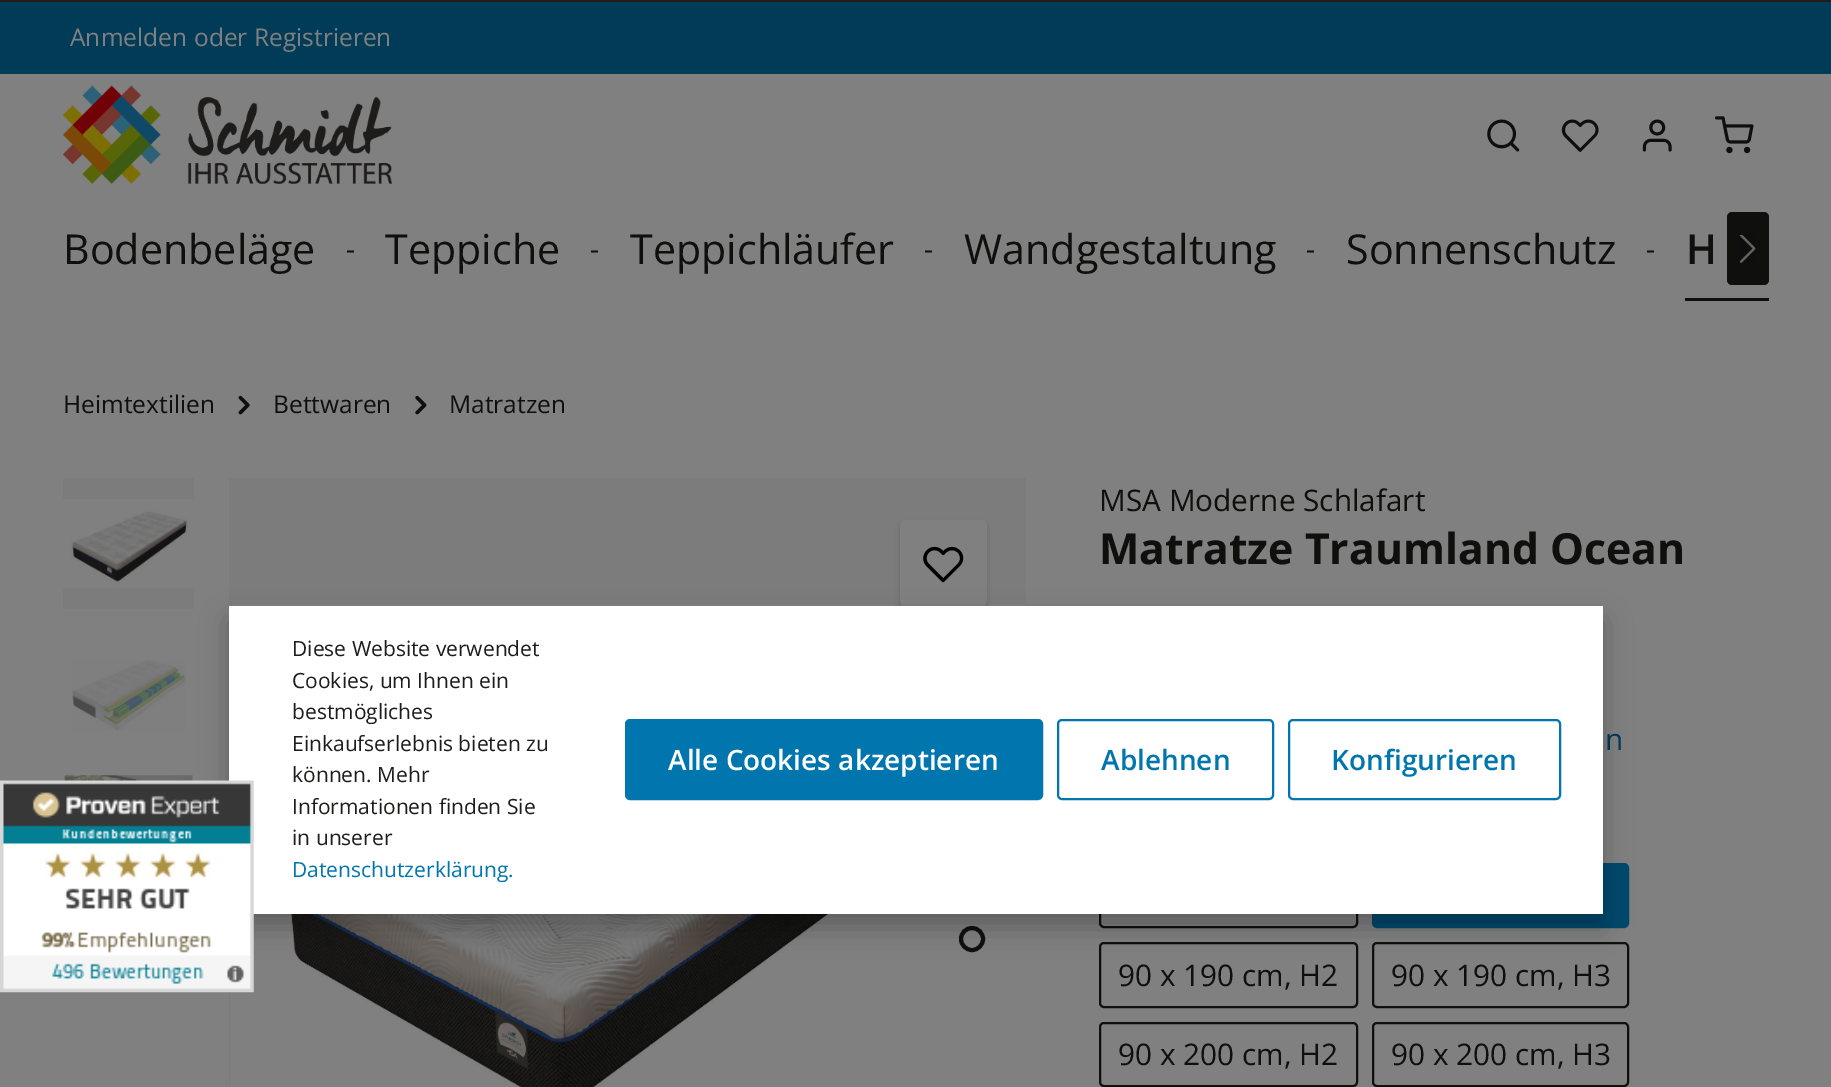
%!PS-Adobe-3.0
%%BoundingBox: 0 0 1831 1087
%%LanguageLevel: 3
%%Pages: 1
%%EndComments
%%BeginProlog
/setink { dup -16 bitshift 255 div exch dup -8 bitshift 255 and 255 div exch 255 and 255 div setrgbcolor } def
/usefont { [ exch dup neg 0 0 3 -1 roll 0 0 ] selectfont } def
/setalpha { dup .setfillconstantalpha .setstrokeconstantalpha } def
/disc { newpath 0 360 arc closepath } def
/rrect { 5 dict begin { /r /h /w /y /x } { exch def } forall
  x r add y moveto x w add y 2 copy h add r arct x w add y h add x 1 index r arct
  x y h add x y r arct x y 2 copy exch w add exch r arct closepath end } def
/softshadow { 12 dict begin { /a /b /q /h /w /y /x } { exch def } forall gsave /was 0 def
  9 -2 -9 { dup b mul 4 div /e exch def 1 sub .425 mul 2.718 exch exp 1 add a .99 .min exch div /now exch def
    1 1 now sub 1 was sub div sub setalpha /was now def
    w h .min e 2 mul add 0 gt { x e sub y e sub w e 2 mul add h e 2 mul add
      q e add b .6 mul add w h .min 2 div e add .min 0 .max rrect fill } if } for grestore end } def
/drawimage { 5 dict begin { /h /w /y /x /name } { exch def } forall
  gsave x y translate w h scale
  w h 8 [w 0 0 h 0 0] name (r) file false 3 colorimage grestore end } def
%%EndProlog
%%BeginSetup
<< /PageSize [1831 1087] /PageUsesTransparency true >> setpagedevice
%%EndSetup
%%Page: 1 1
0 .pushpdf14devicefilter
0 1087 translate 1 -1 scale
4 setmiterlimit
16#808080 setink
0 0 1831 1087 rectfill
16#003B57 setink
0 2 1831 72 rectfill
/OpenSans-Regular 24.5 usefont
16#808080 setink
[
    [(Anmelden) 70 46]
    [(oder) 194 46]
    [(Registrieren) 254 46]
] { aload pop moveto show } forall
(img1.raw) 63 85 329 99 drawimage
(img2.raw) 1487 119 33 33 drawimage
(img3.raw) 1561 119 38 33 drawimage
(img4.raw) 1642 119 30 33 drawimage
(img5.raw) 1715 116 39 38 drawimage
/OpenSans-Regular 41.25 usefont
16#0F0F0E setink
63 264 moveto (Bodenbeläge) show
/OpenSans-Regular 28 usefont
346 259 moveto (-) show
/OpenSans-Regular 41.25 usefont
385 264 moveto (Teppiche) show
/OpenSans-Regular 28 usefont
590 259 moveto (-) show
/OpenSans-Regular 41.25 usefont
630 264 moveto (Teppichläufer) show
/OpenSans-Regular 28 usefont
924 259 moveto (-) show
/OpenSans-Regular 41.25 usefont
964 264 moveto (Wandgestaltung) show
/OpenSans-Regular 28 usefont
1306 259 moveto (-) show
/OpenSans-Regular 41.25 usefont
1346 264 moveto (Sonnenschutz) show
/OpenSans-Regular 28 usefont
1646 259 moveto (-) show
/OpenSans-SemiBold 41.25 usefont
1686 264 moveto (H) show
1685 298 84 3 rectfill
1727 212 42 73 5 rrect fill
(img6.raw) 1739 235 17 28 drawimage
/OpenSans-Regular 24.5 usefont
63 413 moveto (Heimtextilien) show
(img7.raw) 238 395 12 20 drawimage
273 413 moveto (Bettwaren) show
(img8.raw) 415 395 12 20 drawimage
449 413 moveto (Matratzen) show
16#7C7C7C setink
63 478 131 131 rectfill
(img9.raw) 63 499 131 89 drawimage
(img10.raw) 72 660 114 71 drawimage
(img11.raw) 64 775 129 6 drawimage
229 478 797 609 rectfill
(img12.raw) 230 604 796 483 drawimage
16#808080 setink
900 520 87 87 5 rrect fill
gsave
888 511 moveto 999 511 lineto 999 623 lineto 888 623 lineto closepath 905 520 moveto 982 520 lineto 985 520 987 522 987 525 curveto 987 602 lineto 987 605 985 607 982 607 curveto 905 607 lineto 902 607 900 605 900 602 curveto 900 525 lineto 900 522 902 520 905 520 curveto closepath eoclip newpath
16#000000 setink
900 523 87 88 5 3.5 0.15 softshadow
grestore
(img13.raw) 923 546 41 37 drawimage
16#0F0F0E setink
4 setlinewidth
972 939 11 disc stroke
/OpenSans-Regular 29.75 usefont
1099 511 moveto (MSA Moderne Schlafart) show
/OpenSans-Bold 42.75 usefont
1099 564 moveto (Matratze Traumland Ocean) show
/OpenSans-Regular 29.75 usefont
16#003B57 setink
1605 750 moveto (n) show
16#0F0F0E setink
2 setlinewidth
1100 864 257 63 4 rrect stroke
16#004A6D setink
1373 864 255 63 4 rrect gsave fill grestore
stroke
16#0F0F0E setink
1100 943 257 64 4 rrect stroke
1118 986 moveto (90 x 190 cm, H2) show
1373 943 255 64 4 rrect stroke
1391 986 moveto (90 x 190 cm, H3) show
1100 1023 257 63 4 rrect stroke
1118 1065 moveto (90 x 200 cm, H2) show
1373 1023 255 63 4 rrect stroke
1391 1065 moveto (90 x 200 cm, H3) show
16#000000 setink
229 620 1374 308 0 14 0.25 softshadow
16#FFFFFF setink
229 606 1374 308 rectfill
(img14.raw) 0 780 254 213 drawimage
16#1D1D1C setink
0 0 1831 2 rectfill
/OpenSans-Regular 21 usefont
[
    [(Diese Website verwendet) 292 656]
    [(Cookies, um Ihnen ein) 292 688]
    [(bestmögliches) 292 719]
    [(Einkaufserlebnis bieten zu) 292 751]
    [(können. Mehr) 292 782]
    [(Informationen finden Sie) 292 814]
    [(in unserer) 292 845]
] { aload pop moveto show } forall
16#0075AE setink
292 877 moveto (Datenschutzerklärung.) show
626 720 416 79 4 rrect gsave fill grestore
stroke
/OpenSans-SemiBold 28 usefont
16#FFFFFF setink
668 770 moveto (Alle Cookies akzeptieren) show
16#0075AE setink
1058 720 215 79 4 rrect stroke
1101 770 moveto (Ablehnen) show
1289 720 271 79 4 rrect stroke
1331 770 moveto (Konfigurieren) show
.poppdf14devicefilter showpage
%%EOF
